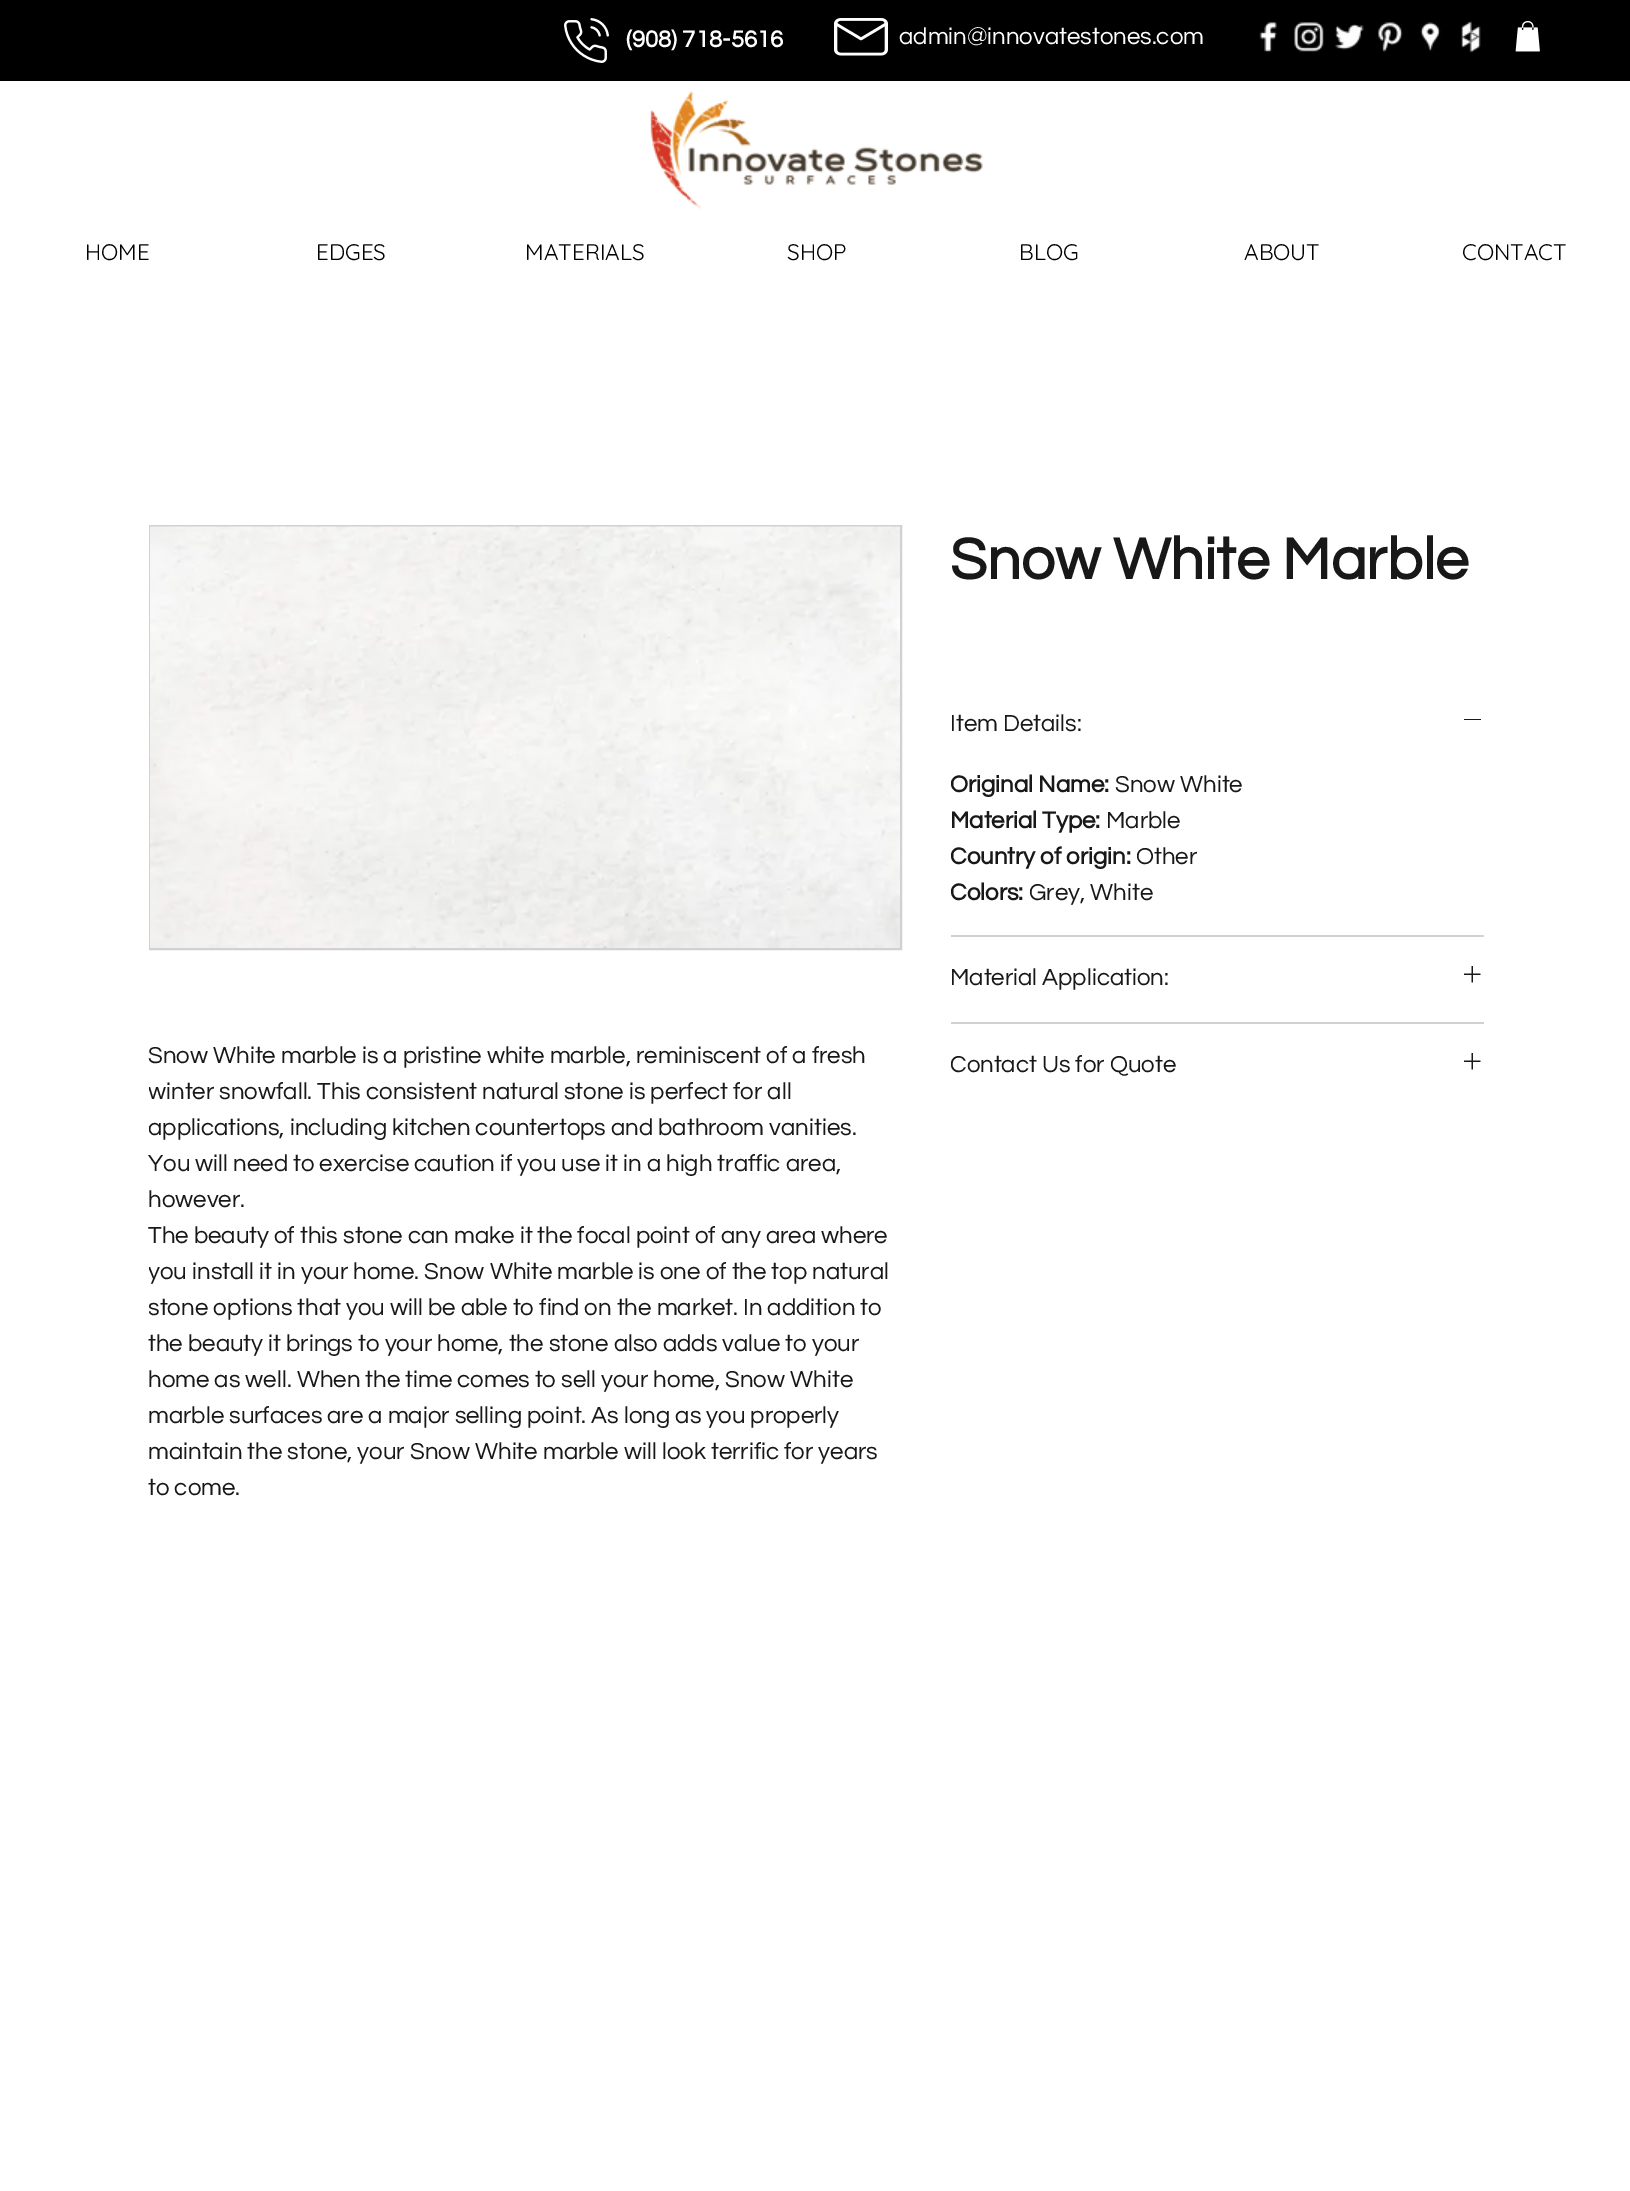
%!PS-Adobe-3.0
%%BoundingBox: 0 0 1630 2191
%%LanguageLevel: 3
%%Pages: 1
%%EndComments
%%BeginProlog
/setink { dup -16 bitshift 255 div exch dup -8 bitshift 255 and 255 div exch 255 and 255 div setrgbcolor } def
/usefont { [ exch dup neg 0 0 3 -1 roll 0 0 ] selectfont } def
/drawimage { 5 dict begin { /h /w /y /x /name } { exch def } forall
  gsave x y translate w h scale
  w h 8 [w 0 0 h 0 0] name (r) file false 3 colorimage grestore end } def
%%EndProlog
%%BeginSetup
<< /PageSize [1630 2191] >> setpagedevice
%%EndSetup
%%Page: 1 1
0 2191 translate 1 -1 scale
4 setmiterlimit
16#FFFFFF setink
0 0 1630 2191 rectfill
16#000000 setink
0 0 1630 81 rectfill
(img1.raw) 564 18 45 45 drawimage
/Questrial-Bold 24 usefont
16#FFFFFF setink
626 47 moveto (\(908\) 718-5616) show
(img2.raw) 834 18 54 38 drawimage
/Questrial-Regular 24 usefont
899 44 moveto (admin@innovatestones.com) show
(img3.raw) 1259 22 18 30 drawimage
(img4.raw) 1294 22 30 30 drawimage
(img5.raw) 1335 24 29 26 drawimage
(img6.raw) 1378 22 25 30 drawimage
(img7.raw) 1420 22 21 30 drawimage
(img8.raw) 1461 21 20 32 drawimage
(img9.raw) 1515 21 25 31 drawimage
(img10.raw) 650 91 333 118 drawimage
/Quicksand-Regular 22.5 usefont
16#000000 setink
[
    [(HOME) 85 260]
    [(EDGES) 316 260]
    [(MATERIALS) 525 260]
    [(SHOP) 787 260]
    [(BLOG) 1019 260]
    [(ABOUT) 1244 260]
    [(CONTACT) 1462 260]
] { aload pop moveto show } forall
/Questrial-Bold 60 usefont
16#181818 setink
950 579 moveto (Snow White Marble) show
16#D1D1D1 setink
951 935 533 2 rectfill
/Questrial-Regular 24 usefont
16#181818 setink
950 731 moveto (Item Details:) show
1464 719 17 1 rectfill
/Questrial-Bold 24 usefont
950 792 moveto (Original Name:) show
/Questrial-Regular 24 usefont
1115 792 moveto (Snow White) show
/Questrial-Bold 24 usefont
950 828 moveto (Material Type:) show
/Questrial-Regular 24 usefont
1106 828 moveto (Marble) show
/Questrial-Bold 24 usefont
950 864 moveto (Country of origin:) show
/Questrial-Regular 24 usefont
1136 864 moveto (Other) show
/Questrial-Bold 24 usefont
950 900 moveto (Colors:) show
/Questrial-Regular 24 usefont
1029 900 moveto (Grey, White) show
16#D1D1D1 setink
951 1022 533 2 rectfill
16#181818 setink
950 985 moveto (Material Application:) show
(img11.raw) 1464 966 17 17 drawimage
950 1072 moveto (Contact Us for Quote) show
(img11.raw) 1464 1053 17 17 drawimage
16#D1D1D1 setink
2 setlinewidth
150 526 751 423 rectstroke
(img12.raw) 150 526 750 422 drawimage
16#181818 setink
148 1063 moveto (Snow White marble is a pristine white marble, reminiscent of a fresh) show
gsave
149 1037 750 468 rectclip
148 1099 moveto (winter snowfall. This consistent natural stone is perfect for all) show
148 1135 moveto (applications, including kitchen countertops and bathroom vanities.) show
grestore
[
    [(You will need to exercise caution if you use it in a high traffic area,) 148 1171]
    [(however.) 148 1207]
    [(The beauty of this stone can make it the focal point of any area where) 148 1243]
] { aload pop moveto show } forall
gsave
149 1037 750 468 rectclip
148 1279 moveto (you install it in your home. Snow White marble is one of the top natural) show
148 1315 moveto (stone options that you will be able to find on the market. In addition to) show
grestore
[
    [(the beauty it brings to your home, the stone also adds value to your) 148 1351]
    [(home as well. When the time comes to sell your home, Snow White) 148 1387]
    [(marble surfaces are a major selling point. As long as you properly) 148 1423]
    [(maintain the stone, your Snow White marble will look terrific for years) 148 1459]
    [(to come.) 148 1495]
] { aload pop moveto show } forall
showpage
%%EOF
